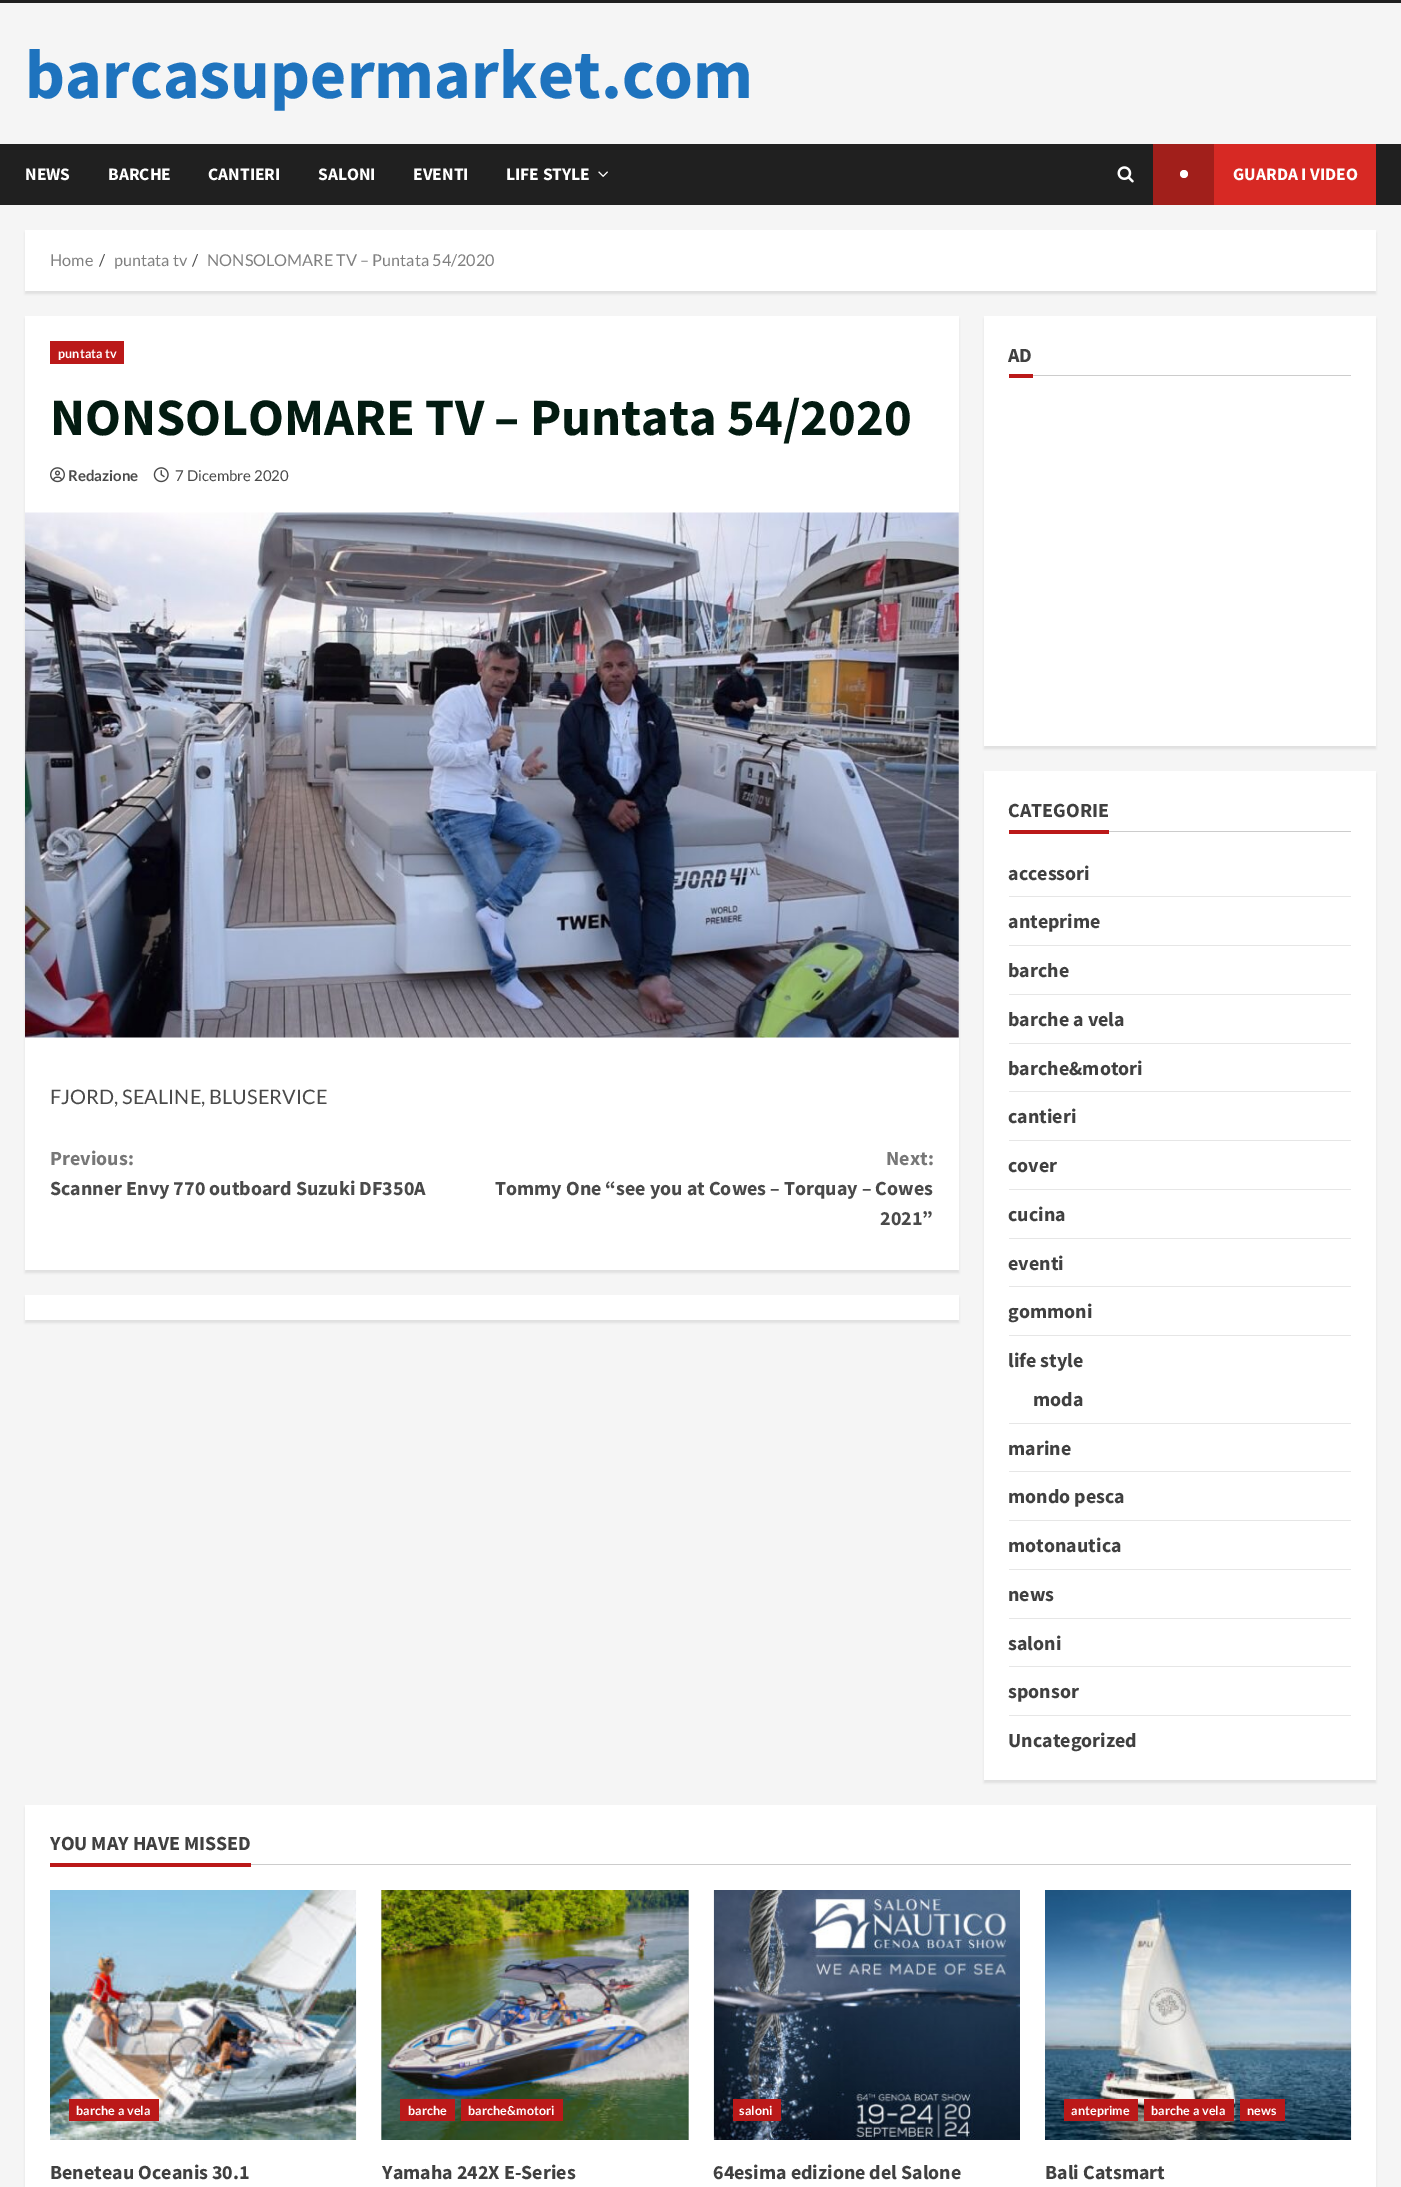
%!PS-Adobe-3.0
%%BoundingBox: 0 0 1401 2187
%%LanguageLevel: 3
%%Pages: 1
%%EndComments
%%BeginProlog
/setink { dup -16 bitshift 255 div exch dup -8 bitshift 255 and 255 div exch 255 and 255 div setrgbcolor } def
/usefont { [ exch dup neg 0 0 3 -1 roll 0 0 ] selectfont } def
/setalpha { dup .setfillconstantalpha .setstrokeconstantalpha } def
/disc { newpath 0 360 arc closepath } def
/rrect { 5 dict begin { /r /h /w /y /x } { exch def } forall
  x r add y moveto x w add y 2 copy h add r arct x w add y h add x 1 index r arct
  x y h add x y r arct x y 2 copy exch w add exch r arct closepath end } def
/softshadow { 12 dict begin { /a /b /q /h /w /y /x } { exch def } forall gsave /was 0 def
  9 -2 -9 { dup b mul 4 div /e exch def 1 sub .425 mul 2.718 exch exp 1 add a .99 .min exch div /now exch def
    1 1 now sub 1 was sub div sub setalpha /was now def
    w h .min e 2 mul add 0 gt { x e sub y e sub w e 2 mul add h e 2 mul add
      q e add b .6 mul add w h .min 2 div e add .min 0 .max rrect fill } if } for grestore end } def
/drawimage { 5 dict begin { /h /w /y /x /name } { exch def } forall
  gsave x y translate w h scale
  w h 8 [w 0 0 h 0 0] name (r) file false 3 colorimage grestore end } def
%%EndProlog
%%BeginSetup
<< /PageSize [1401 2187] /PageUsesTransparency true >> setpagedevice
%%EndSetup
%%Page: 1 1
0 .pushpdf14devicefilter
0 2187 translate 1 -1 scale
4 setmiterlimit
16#F5F5F5 setink
0 0 1401 2187 rectfill
16#202020 setink
0 0 1401 3 rectfill
/SourceSansPro-Bold 70 usefont
16#1E73BE setink
25 98 moveto (barcasupermarket.com) show
16#202020 setink
0 144 1401 61 rectfill
/SourceSansPro-Bold 17.5 usefont
16#FFFFFF setink
[
    [(NEWS) 25 180]
    [(BARCHE) 108 180]
    [(CANTIERI) 208 180]
    [(SALONI) 318 180]
    [(EVENTI) 413 180]
    [(LIFE STYLE) 506 180]
] { aload pop moveto show } forall
(img1.raw) 598 171 10 6 drawimage
(img2.raw) 1117 166 17 17 drawimage
16#D72924 setink
1214 144 162 61 rectfill
16#A11F1B setink
1153 144 61 61 rectfill
16#FFFFFF setink
1184 174 4 disc fill
1233 180 moveto (GUARDA I VIDEO) show
16#000000 setink
25 233 1351 61 0 1 0.08 softshadow
16#FFFFFF setink
25 230 1351 61 rectfill
/Lato-Regular 16.25 usefont
16#808080 setink
50 266 moveto (Home) show
16#4A4A4A setink
99 266 moveto (/) show
16#808080 setink
114 266 moveto (puntata tv) show
16#4A4A4A setink
192 266 moveto (/) show
16#808080 setink
207 266 moveto (NONSOLOMARE TV – Puntata 54/2020) show
16#000000 setink
25 319 934 954 0 1 0.08 softshadow
16#FFFFFF setink
25 316 934 954 rectfill
16#BB1919 setink
50 341 74 23 rectfill
/Lato-Bold 12.5 usefont
16#FFFFFF setink
58 358 moveto 0.1 0 (puntata tv) ashow
/SourceSansPro-Bold 52.5 usefont
16#031B11 setink
50 435 moveto (NONSOLOMARE TV – Puntata 54/2020) show
(img3.raw) 50 467 15 16 drawimage
/Lato-Bold 15 usefont
16#4A4A4A setink
68 481 moveto (Redazione) show
(img4.raw) 153 467 16 16 drawimage
/Lato-Regular 15 usefont
175 481 moveto (7 Dicembre 2020) show
(img5.raw) 25 512 934 526 drawimage
/Lato-Regular 20 usefont
50 1104 moveto (FJORD, SEALINE, BLUSERVICE) show
/SourceSansPro-Bold 20 usefont
16#777777 setink
50 1165 moveto (Previous:) show
16#4A4A4A setink
50 1195 moveto (Scanner Envy 770 outboard Suzuki DF350A) show
16#777777 setink
886 1165 moveto (Next:) show
16#4A4A4A setink
495 1195 moveto (Tommy One “see you at Cowes – Torquay – Cowes) show
880 1225 moveto (2021”) show
16#000000 setink
25 1298 934 25 0 1 0.08 softshadow
16#FFFFFF setink
25 1295 934 25 rectfill
16#000000 setink
984 319 392 430 0 1 0.08 softshadow
16#FFFFFF setink
984 316 392 430 rectfill
16#CCCCCC setink
1033 375 318 1 rectfill
16#404040 setink
1008 362 moveto (AD) show
16#BB1919 setink
1009 374 24 4 rectfill
16#000000 setink
984 774 392 1009 0 1 0.08 softshadow
16#FFFFFF setink
984 771 392 1009 rectfill
16#CCCCCC setink
1109 831 242 1 rectfill
16#404040 setink
1008 817 moveto (CATEGORIE) show
16#BB1919 setink
1009 830 100 4 rectfill
16#E6E6E6 setink
1009 896 342 1 rectfill
16#404040 setink
1008 880 moveto (accessori) show
16#E6E6E6 setink
1009 945 342 1 rectfill
16#404040 setink
1008 928 moveto (anteprime) show
16#E6E6E6 setink
1009 994 342 1 rectfill
16#404040 setink
1008 977 moveto (barche) show
16#E6E6E6 setink
1009 1043 342 1 rectfill
16#404040 setink
1008 1026 moveto (barche a vela) show
16#E6E6E6 setink
1009 1091 342 1 rectfill
16#404040 setink
1008 1075 moveto (barche&motori) show
16#E6E6E6 setink
1009 1140 342 1 rectfill
16#404040 setink
1008 1123 moveto (cantieri) show
16#E6E6E6 setink
1009 1189 342 1 rectfill
16#404040 setink
1008 1172 moveto (cover) show
16#E6E6E6 setink
1009 1238 342 1 rectfill
16#404040 setink
1008 1221 moveto (cucina) show
16#E6E6E6 setink
1009 1286 342 1 rectfill
16#404040 setink
1008 1270 moveto (eventi) show
16#E6E6E6 setink
1009 1335 342 1 rectfill
16#404040 setink
1008 1318 moveto (gommoni) show
16#E6E6E6 setink
1009 1423 342 1 rectfill
16#404040 setink
1008 1367 moveto (life style) show
1033 1406 moveto (moda) show
16#E6E6E6 setink
1009 1471 342 1 rectfill
16#404040 setink
1008 1455 moveto (marine) show
16#E6E6E6 setink
1009 1520 342 1 rectfill
16#404040 setink
1008 1503 moveto (mondo pesca) show
16#E6E6E6 setink
1009 1569 342 1 rectfill
16#404040 setink
1008 1552 moveto (motonautica) show
16#E6E6E6 setink
1009 1618 342 1 rectfill
16#404040 setink
1008 1601 moveto (news) show
16#E6E6E6 setink
1009 1666 342 1 rectfill
16#404040 setink
1008 1650 moveto (saloni) show
16#E6E6E6 setink
1009 1715 342 1 rectfill
16#404040 setink
1008 1698 moveto (sponsor) show
1008 1747 moveto (Uncategorized) show
16#000000 setink
25 1808 1351 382 0 1 0.08 softshadow
16#FFFFFF setink
25 1805 1351 382 rectfill
16#CCCCCC setink
251 1864 1100 1 rectfill
16#404040 setink
50 1850 moveto (YOU MAY HAVE MISSED) show
16#BB1919 setink
50 1863 201 4 rectfill
(img6.raw) 50 1890 307 250 drawimage
69 2099 90 22 rectfill
/Lato-Bold 12.5 usefont
16#FFFFFF setink
76 2115 moveto 0.1 0 (barche a vela) ashow
/SourceSansPro-Bold 20 usefont
16#404040 setink
50 2179 moveto (Beneteau Oceanis 30.1) show
16#CCCCCC setink
381 1890 308 250 rectfill
(img7.raw) 381 1890 308 250 drawimage
16#BB1919 setink
400 2099 55 22 rectfill
/Lato-Bold 12.5 usefont
16#FFFFFF setink
408 2115 moveto 0.1 0 (barche) ashow
16#BB1919 setink
461 2099 102 22 rectfill
16#FFFFFF setink
468 2115 moveto 0.1 0 (barche&motori) ashow
/SourceSansPro-Bold 20 usefont
16#404040 setink
382 2179 moveto (Yamaha 242X E-Series) show
(img8.raw) 713 1890 307 250 drawimage
16#BB1919 setink
733 2099 48 22 rectfill
/Lato-Bold 12.5 usefont
16#FFFFFF setink
739 2115 moveto 0.1 0 (saloni) ashow
/SourceSansPro-Bold 20 usefont
16#404040 setink
713 2179 moveto (64esima edizione del Salone) show
(img9.raw) 1045 1890 307 250 drawimage
16#BB1919 setink
1064 2099 74 22 rectfill
/Lato-Bold 12.5 usefont
16#FFFFFF setink
1071 2115 moveto 0.1 0 (anteprime) ashow
16#BB1919 setink
1144 2099 90 22 rectfill
16#FFFFFF setink
1151 2115 moveto 0.1 0 (barche a vela) ashow
16#BB1919 setink
1240 2099 45 22 rectfill
16#FFFFFF setink
1247 2115 moveto 0.1 0 (news) ashow
/SourceSansPro-Bold 20 usefont
16#404040 setink
1045 2179 moveto (Bali Catsmart) show
.poppdf14devicefilter showpage
%%EOF
